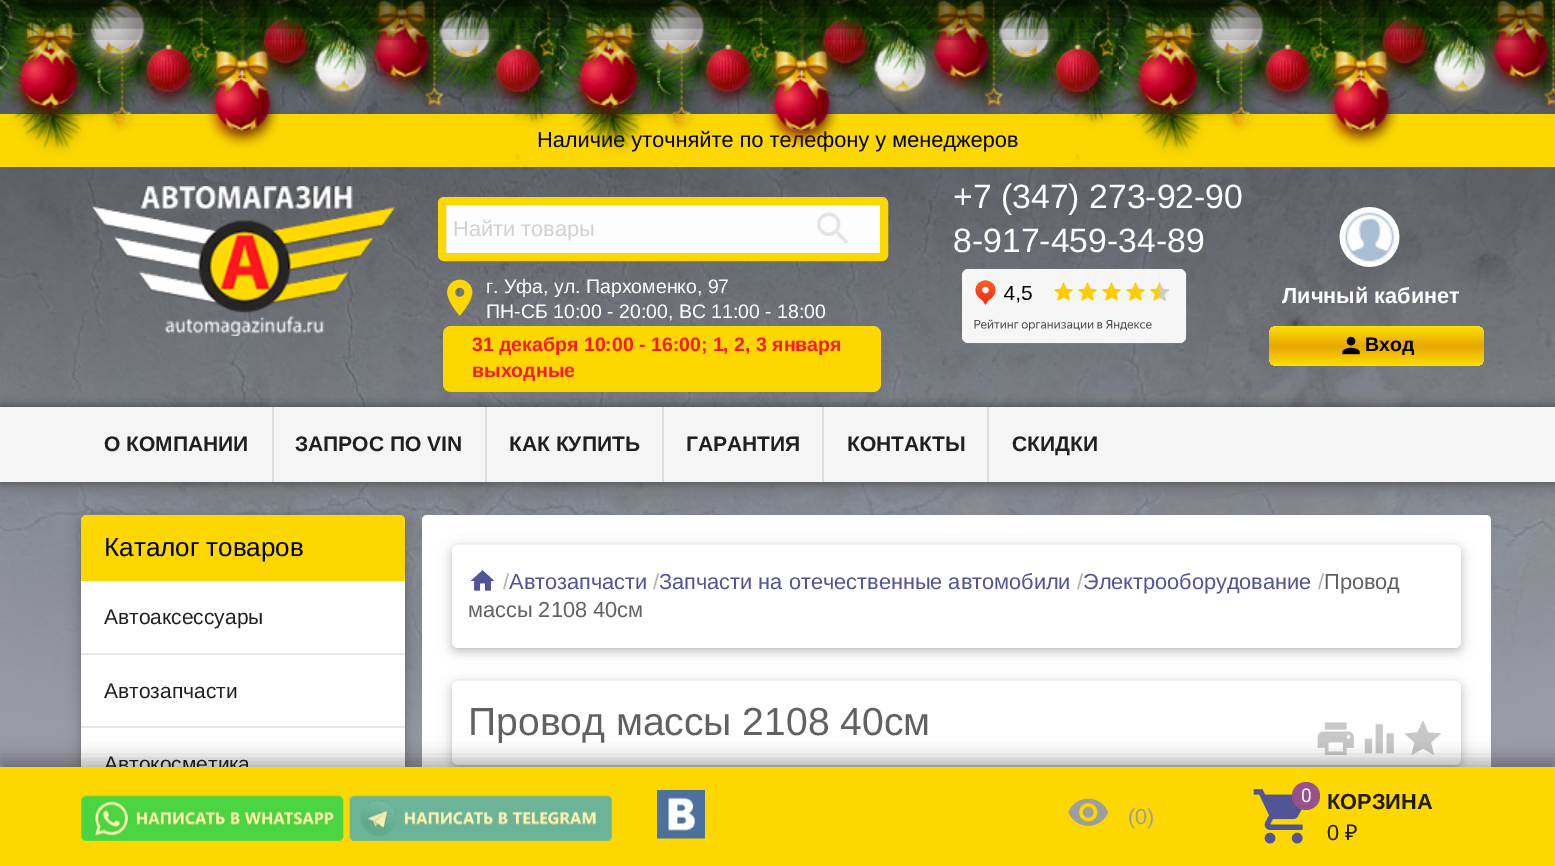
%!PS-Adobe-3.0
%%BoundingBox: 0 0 1555 866
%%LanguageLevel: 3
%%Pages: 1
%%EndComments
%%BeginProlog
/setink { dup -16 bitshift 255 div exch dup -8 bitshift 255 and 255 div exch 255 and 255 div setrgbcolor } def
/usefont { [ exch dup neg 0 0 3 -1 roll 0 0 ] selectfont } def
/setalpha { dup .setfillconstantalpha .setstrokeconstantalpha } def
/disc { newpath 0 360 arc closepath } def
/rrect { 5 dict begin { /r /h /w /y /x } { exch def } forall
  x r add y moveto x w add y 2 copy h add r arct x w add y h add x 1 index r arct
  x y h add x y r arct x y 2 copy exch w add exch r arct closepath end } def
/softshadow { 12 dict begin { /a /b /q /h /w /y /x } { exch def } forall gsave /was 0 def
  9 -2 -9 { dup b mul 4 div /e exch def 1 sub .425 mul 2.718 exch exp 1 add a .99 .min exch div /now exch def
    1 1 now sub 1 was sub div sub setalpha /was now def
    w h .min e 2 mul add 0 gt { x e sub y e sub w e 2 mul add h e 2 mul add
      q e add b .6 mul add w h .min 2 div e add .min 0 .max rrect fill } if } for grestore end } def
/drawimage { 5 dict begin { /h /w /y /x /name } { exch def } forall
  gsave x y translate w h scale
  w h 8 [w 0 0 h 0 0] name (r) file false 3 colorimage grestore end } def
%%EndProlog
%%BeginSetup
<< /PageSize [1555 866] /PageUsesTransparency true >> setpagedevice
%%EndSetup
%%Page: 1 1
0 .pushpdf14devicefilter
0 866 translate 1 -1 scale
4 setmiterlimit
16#999DA6 setink
0 0 1555 866 rectfill
(img1.raw) 0 0 1555 763 drawimage
16#FCD800 setink
0 114 1555 53 rectfill
/LiberationSans-Regular 21.75 usefont
16#000000 setink
537 147 moveto (Наличие уточняйте по телефону у менеджеров) show
(img2.raw) 0 0 1555 160 drawimage
(img4.raw) 11 0 75 123 drawimage
(img3.raw) 0 0 38 106 drawimage
(img6.raw) 81 0 73 71 drawimage
(img5.raw) 37 0 92 40 drawimage
(img7.raw) 205 0 75 149 drawimage
(img8.raw) 255 0 60 79 drawimage
(img14.raw) 306 9 68 98 drawimage
(img9.raw) 265 0 43 46 drawimage
(img11.raw) 365 0 73 94 drawimage
(img10.raw) 307 0 76 75 drawimage
(img12.raw) 431 0 69 74 drawimage
(img13.raw) 138 13 61 95 drawimage
(img17.raw) 488 15 60 93 drawimage
(img15.raw) 433 0 118 42 drawimage
(img16.raw) 550 0 10 103 drawimage
(img19.raw) 570 0 75 122 drawimage
(img18.raw) 559 0 38 106 drawimage
(img21.raw) 640 0 74 71 drawimage
(img20.raw) 597 0 91 40 drawimage
(img22.raw) 764 0 76 149 drawimage
(img23.raw) 814 0 61 78 drawimage
(img29.raw) 866 9 67 98 drawimage
(img24.raw) 825 0 42 46 drawimage
(img26.raw) 925 0 72 94 drawimage
(img25.raw) 867 0 75 75 drawimage
(img27.raw) 990 0 69 74 drawimage
(img28.raw) 698 13 60 95 drawimage
(img32.raw) 1048 15 60 93 drawimage
(img30.raw) 993 0 117 42 drawimage
(img31.raw) 1110 0 9 103 drawimage
(img34.raw) 1130 0 75 123 drawimage
(img33.raw) 1119 0 38 106 drawimage
(img36.raw) 1200 0 73 71 drawimage
(img35.raw) 1156 0 92 40 drawimage
(img37.raw) 1324 0 75 149 drawimage
(img38.raw) 1374 0 60 78 drawimage
(img42.raw) 1425 9 68 98 drawimage
(img39.raw) 1384 0 43 46 drawimage
(img41.raw) 1484 0 71 94 drawimage
(img40.raw) 1426 0 76 75 drawimage
0.22 setalpha
16#3A8200 setink
1552 10 3 3 rectfill
1 setalpha
(img43.raw) 1257 13 61 95 drawimage
(img44.raw) 1550 24 5 32 drawimage
16#000000 setink
0 -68 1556 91 0 22.5 0.75 softshadow
(img45.raw) 91 186 305 150 drawimage
16#FDFDFD setink
442 201 442 56 2 rrect gsave fill grestore
16#FCD800 setink
8 setlinewidth
stroke
16#D1D1D1 setink
453 236 moveto (Найти товары) show
(img46.raw) 817 212 32 32 drawimage
(img47.raw) 447 279 26 37 drawimage
/LiberationSans-Regular 19.5 usefont
16#FFFFFF setink
486 293 moveto (г. Уфа, ул. Пархоменко, 97) show
486 318 moveto (ПН-СБ 10:00 - 20:00, ВС 11:00 - 18:00) show
16#FCD800 setink
443 326 438 66 8 rrect fill
/LiberationSans-Bold 19.5 usefont
16#FF181F setink
472 351 moveto (31 декабря 10:00 - 16:00; 1, 2, 3 января) show
472 377 moveto (выходные) show
/LiberationSans-Regular 33.75 usefont
16#FFFFFF setink
953 208 moveto (+7 \(347\) 273-92-90) show
953 252 moveto (8-917-459-34-89) show
(img48.raw) 962 269 225 75 drawimage
16#616161 setink
1250 240 3 disc fill
(img49.raw) 1339 207 61 60 drawimage
/LiberationSans-Bold 21.75 usefont
16#FFFFFF setink
1282 303 moveto (Личный кабинет) show
gsave 1269 326 215 40 8 rrect clip newpath
<< /ShadingType 2 /ColorSpace /DeviceRGB /Coords [1376 326 1376 366] /Extend [true true] /Function << /FunctionType 3 /Domain [0 1] /Functions [<< /FunctionType 2 /Domain [0 1] /C0 [1 0.875 0] /C1 [0.91 0.655 0.012] /N 1 >> << /FunctionType 2 /Domain [0 1] /C0 [0.91 0.655 0.012] /C1 [0.91 0.655 0.012] /N 1 >> << /FunctionType 2 /Domain [0 1] /C0 [0.91 0.655 0.012] /C1 [1 0.875 0] /N 1 >>] /Bounds [0.5 0.51] /Encode [0 1 0 1 0 1] >> >> shfill grestore
(img50.raw) 1342 336 18 19 drawimage
/LiberationSans-Bold 19.5 usefont
16#000000 setink
1365 351 moveto (Вход) show
0 404 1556 75 0 7.5 0.12 softshadow
0 404 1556 75 0 4 0.16 softshadow
0 410 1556 75 0 7.5 0.12 softshadow
0 410 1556 75 0 4 0.16 softshadow
16#F5F5F5 setink
0 407 1555 75 rectfill
/LiberationSans-Bold 21 usefont
16#202020 setink
104 451 moveto (О КОМПАНИИ) show
16#DEDEDE setink
272 407 2 75 rectfill
16#202020 setink
295 451 moveto (ЗАПРОС ПО VIN) show
16#DEDEDE setink
485 407 2 75 rectfill
16#202020 setink
509 451 moveto (КАК КУПИТЬ) show
16#DEDEDE setink
662 407 2 75 rectfill
16#202020 setink
686 451 moveto (ГАРАНТИЯ) show
16#DEDEDE setink
822 407 2 75 rectfill
16#202020 setink
847 451 moveto (КОНТАКТЫ) show
16#DEDEDE setink
987 407 2 75 rectfill
16#202020 setink
1012 451 moveto (СКИДКИ) show
16#000000 setink
81 518 324 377 6 7.5 0.12 softshadow
81 518 324 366 6 4 0.16 softshadow
16#FFFFFF setink
81 515 324 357 6 rrect fill
16#FCD800 setink
87 515 moveto 399 515 lineto 402.5 515 405 517.5 405 521 curveto 405 581 lineto 81 581 lineto 81 521 lineto 81 517.5 83.5 515 87 515 curveto closepath fill
/LiberationSans-Regular 26 usefont
16#000000 setink
104 556 moveto (Каталог товаров) show
/LiberationSans-Regular 21 usefont
16#202020 setink
104 624 moveto (Автоаксессуары) show
16#E7E7E7 setink
81 653 324 2 rectfill
16#202020 setink
104 698 moveto (Автозапчасти) show
16#E7E7E7 setink
81 726 324 2 rectfill
16#202020 setink
104 771 moveto (Автокосметика) show
16#FFFFFF setink
422 515 1069 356 5 rrect fill
16#000000 setink
452 548 1009 103 6 7.5 0.12 softshadow
452 548 1009 103 6 4 0.16 softshadow
16#FFFFFF setink
452 545 1009 103 6 rrect fill
(img51.raw) 470 570 25 21 drawimage
/LiberationSans-Regular 21.75 usefont
16#515496 setink
509 589 moveto (Автозапчасти) show
16#B0B0B0 setink
503 589 moveto (/) show
653 589 moveto (/) show
16#515496 setink
659 589 moveto (Запчасти на отечественные автомобили) show
16#B0B0B0 setink
1077 589 moveto (/) show
16#515496 setink
1083 589 moveto (Электрооборудование) show
16#B0B0B0 setink
1318 589 moveto (/) show
16#616161 setink
1324 589 moveto (Провод) show
468 617 moveto (массы 2108 40см) show
16#000000 setink
452 684 1009 84 6 7.5 0.12 softshadow
452 684 1009 84 6 4 0.16 softshadow
16#FFFFFF setink
452 681 1009 84 6 rrect fill
/LiberationSans-Regular 39.1 usefont
16#616161 setink
468 735 moveto (Провод массы 2108 40см) show
(img52.raw) 1317 722 37 33 drawimage
(img53.raw) 1364 724 30 30 drawimage
16#C7C7C7 setink
1423 748.5 moveto 1411.5 755 lineto 1414.5 742.5 lineto 1404.5 733.5 lineto 1417.5 732.5 lineto 1423 720.5 lineto 1428 732.5 lineto 1441 733.5 lineto 1431 742.5 lineto 1434 755 lineto closepath fill
16#000000 setink
0 761 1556 100 0 11 0.15 softshadow
0 759 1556 101 0 8 0.18 softshadow
16#FCD800 setink
0 767 1555 99 rectfill
(img54.raw) 81 795 263 46 drawimage
(img55.raw) 349 795 263 46 drawimage
(img56.raw) 657 790 48 49 drawimage
(img57.raw) 1068 798 41 28 drawimage
/LiberationSans-Regular 21.75 usefont
16#9E9E9E setink
1128 824 moveto (\(0\)) show
(img58.raw) 1253 789 50 55 drawimage
16#97528B setink
1306 796 14 disc fill
/Roboto-Regular 19 usefont
16#FFFFFF setink
1301 802 moveto (0) show
/LiberationSans-Bold 21.75 usefont
16#211C00 setink
1327 809 moveto (КОРЗИНА) show
/LiberationSans-Regular 21.75 usefont
1327 840 moveto (0) show
/NotoSans-Regular 21.75 usefont
1345 840 moveto (₽) show
.poppdf14devicefilter showpage
%%EOF
